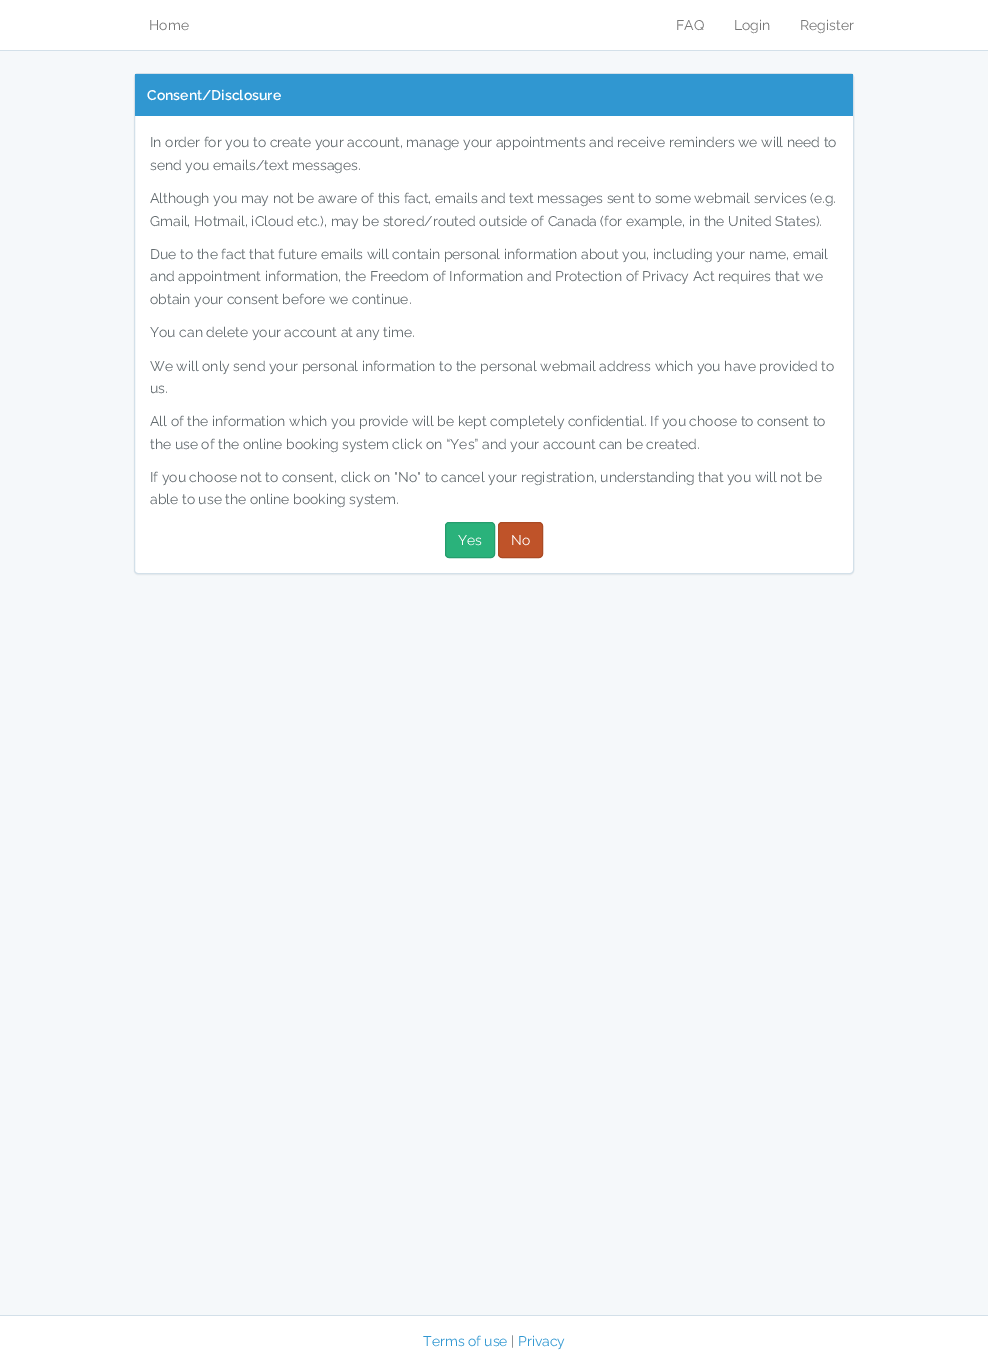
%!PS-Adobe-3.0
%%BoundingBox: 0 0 988 1366
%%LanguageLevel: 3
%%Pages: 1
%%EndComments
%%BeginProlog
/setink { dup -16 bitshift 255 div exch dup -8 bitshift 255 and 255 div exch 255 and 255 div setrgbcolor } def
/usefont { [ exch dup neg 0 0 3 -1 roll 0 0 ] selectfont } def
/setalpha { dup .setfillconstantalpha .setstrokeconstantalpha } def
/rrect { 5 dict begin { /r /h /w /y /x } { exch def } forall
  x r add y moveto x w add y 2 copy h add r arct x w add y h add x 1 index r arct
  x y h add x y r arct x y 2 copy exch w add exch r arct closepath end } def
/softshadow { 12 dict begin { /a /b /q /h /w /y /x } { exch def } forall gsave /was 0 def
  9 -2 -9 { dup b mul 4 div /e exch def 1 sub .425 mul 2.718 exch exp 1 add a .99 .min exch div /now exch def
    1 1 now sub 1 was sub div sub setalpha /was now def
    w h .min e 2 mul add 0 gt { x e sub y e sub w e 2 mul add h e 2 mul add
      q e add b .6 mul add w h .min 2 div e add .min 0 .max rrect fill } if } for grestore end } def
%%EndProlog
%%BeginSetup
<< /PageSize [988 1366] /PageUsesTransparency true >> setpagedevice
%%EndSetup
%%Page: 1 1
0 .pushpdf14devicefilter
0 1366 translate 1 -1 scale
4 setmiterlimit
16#F5F8FA setink
0 0 988 1366 rectfill
16#FFFFFF setink
0 0 988 50 rectfill
16#D3E0E9 setink
0 50 988 1 rectfill
/Raleway-Regular 14 usefont
16#777777 setink
[
    [(Home) 149 30]
    [(FAQ) 676 30]
    [(Login) 734 30]
    [(Register) 800 30]
] { aload pop moveto show } forall
16#000000 setink
134 74 720 501 4 0.5 0.05 softshadow
16#FFFFFF setink
134.5 73.5 719 500 3.5 rrect gsave fill grestore
16#D3E0E9 setink
stroke
16#3097D1 setink
135 74 718 42 rectfill
/Raleway-SemiBold 14 usefont
16#FFFFFF setink
147 100 moveto (Consent/Disclosure) show
/Raleway-Regular 14 usefont
16#636B6F setink
[
    [(In order for you to create your account, manage your appointments and receive reminders we will need to) 150 147]
    [(send you emails/text messages.) 150 170]
    [(Although you may not be aware of this fact, emails and text messages sent to some webmail services \(e.g.) 150 203]
    [(Gmail, Hotmail, iCloud etc.\), may be stored/routed outside of Canada \(for example, in the United States\).) 150 226]
    [(Due to the fact that future emails will contain personal information about you, including your name, email) 150 259]
    [(and appointment information, the Freedom of Information and Protection of Privacy Act requires that we) 150 281]
    [(obtain your consent before we continue.) 150 304]
    [(You can delete your account at any time.) 150 337]
    [(We will only send your personal information to the personal webmail address which you have provided to) 150 371]
    [(us.) 150 393]
    [(All of the information which you provide will be kept completely confidential. If you choose to consent to) 150 426]
    [(the use of the online booking system click on “Yes” and your account can be created.) 150 449]
    [(If you choose not to consent, click on "No" to cancel your registration, understanding that you will not be) 150 482]
    [(able to use the online booking system.) 150 504]
] { aload pop moveto show } forall
16#2AB27B setink
445.5 522.5 49 35 3.5 rrect gsave fill grestore
16#259D6D setink
stroke
16#FFFFFF setink
458 545 moveto (Yes) show
16#BF5329 setink
498.5 522.5 44 35 3.5 rrect gsave fill grestore
16#AA4A24 setink
stroke
16#FFFFFF setink
511 545 moveto (No) show
0 1316 988 50 rectfill
16#D3E0E9 setink
0 1315 988 1 rectfill
16#3097D1 setink
423 1346 moveto (Terms of use) show
16#636B6F setink
511 1346 moveto (|) show
16#3097D1 setink
518 1346 moveto (Privacy) show
.poppdf14devicefilter showpage
%%EOF
